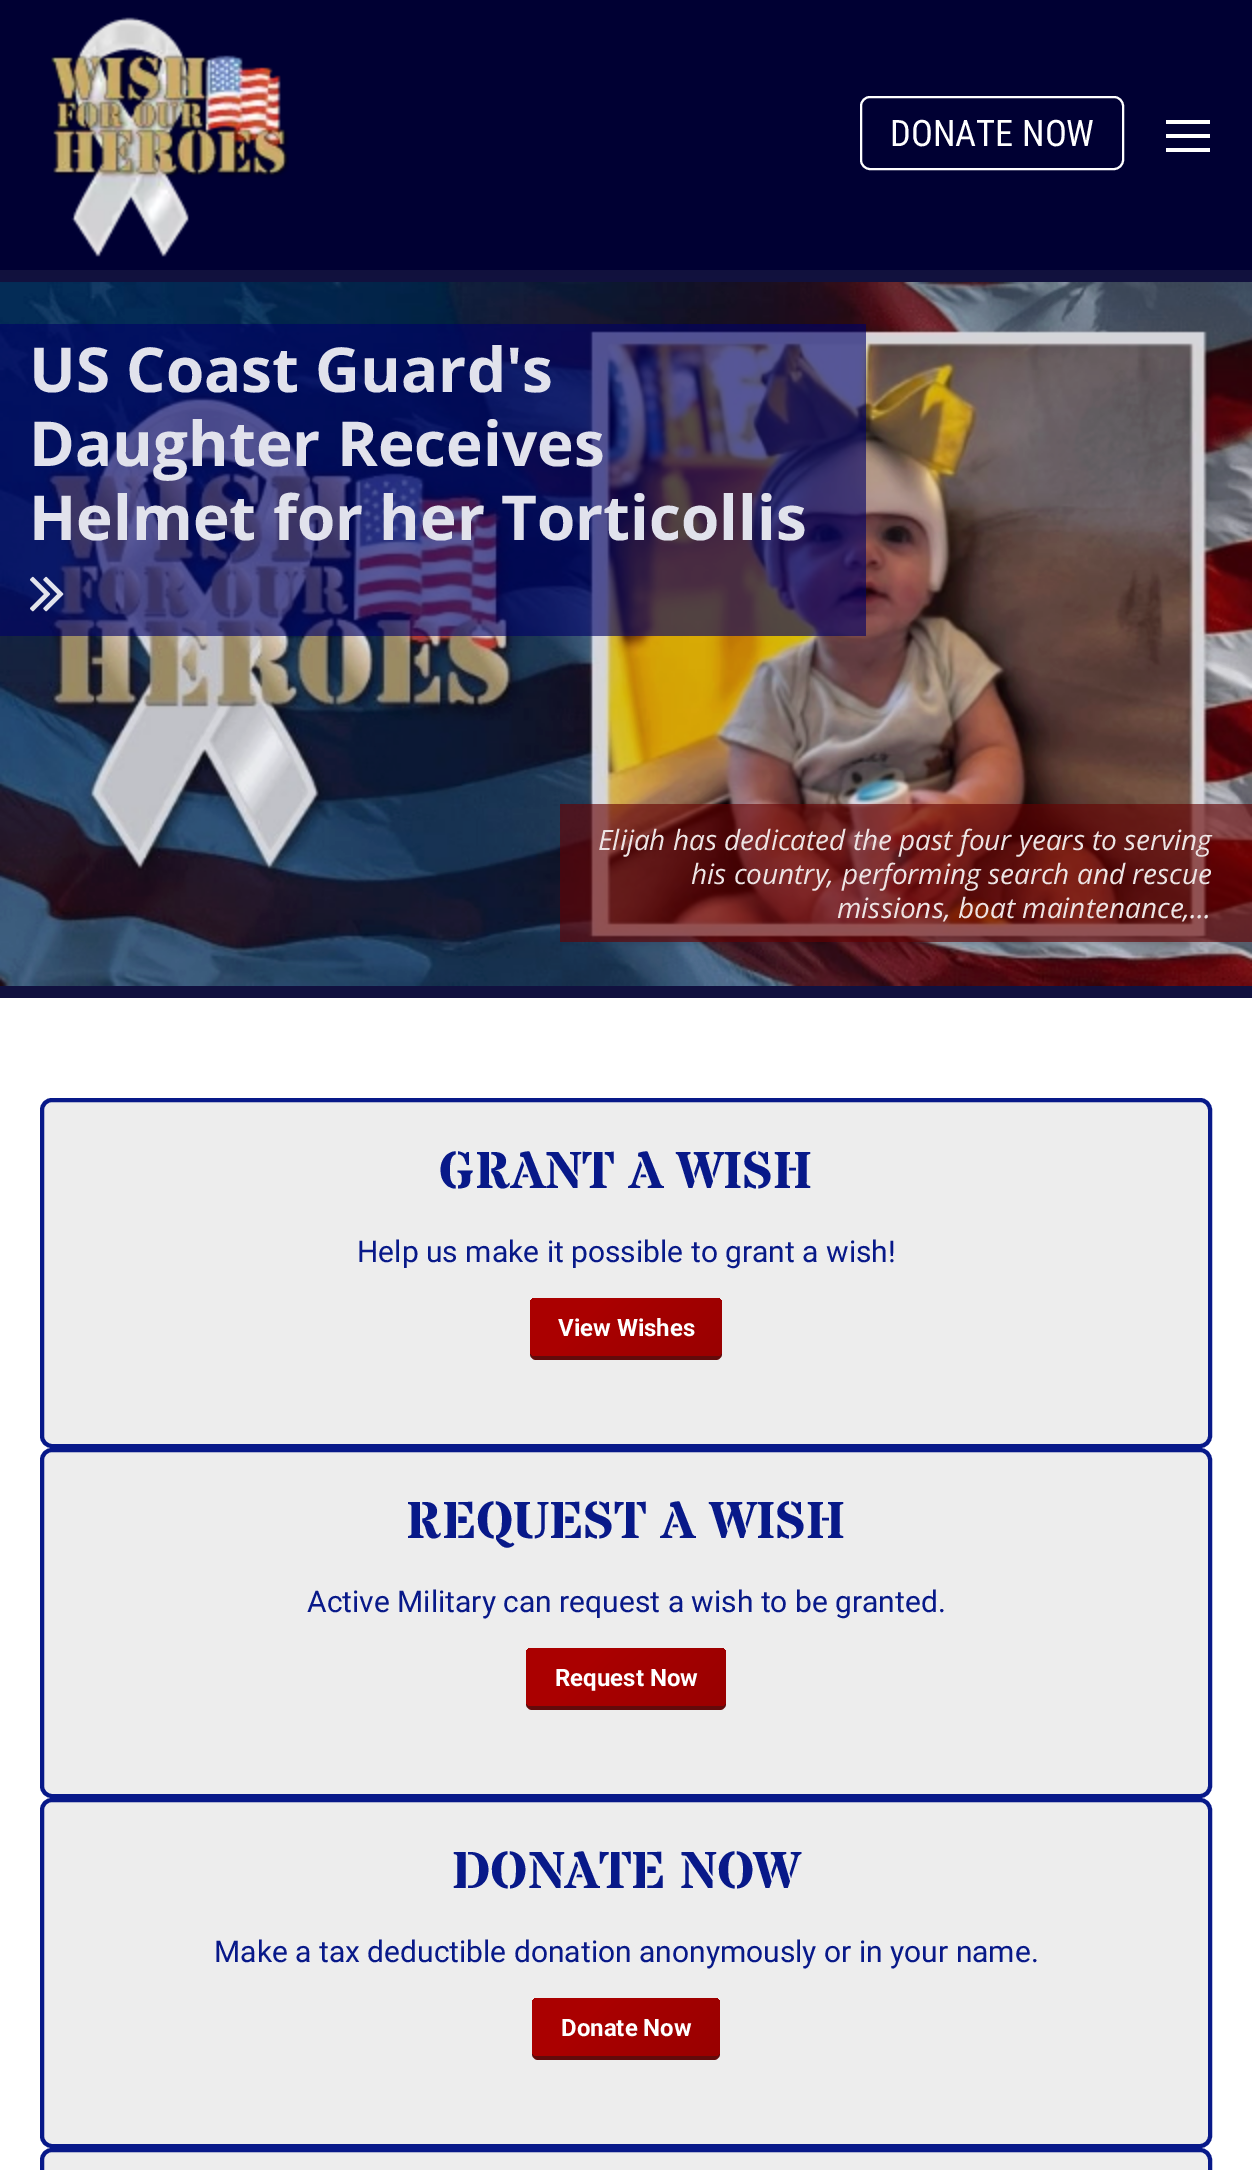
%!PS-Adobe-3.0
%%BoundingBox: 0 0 1252 2170
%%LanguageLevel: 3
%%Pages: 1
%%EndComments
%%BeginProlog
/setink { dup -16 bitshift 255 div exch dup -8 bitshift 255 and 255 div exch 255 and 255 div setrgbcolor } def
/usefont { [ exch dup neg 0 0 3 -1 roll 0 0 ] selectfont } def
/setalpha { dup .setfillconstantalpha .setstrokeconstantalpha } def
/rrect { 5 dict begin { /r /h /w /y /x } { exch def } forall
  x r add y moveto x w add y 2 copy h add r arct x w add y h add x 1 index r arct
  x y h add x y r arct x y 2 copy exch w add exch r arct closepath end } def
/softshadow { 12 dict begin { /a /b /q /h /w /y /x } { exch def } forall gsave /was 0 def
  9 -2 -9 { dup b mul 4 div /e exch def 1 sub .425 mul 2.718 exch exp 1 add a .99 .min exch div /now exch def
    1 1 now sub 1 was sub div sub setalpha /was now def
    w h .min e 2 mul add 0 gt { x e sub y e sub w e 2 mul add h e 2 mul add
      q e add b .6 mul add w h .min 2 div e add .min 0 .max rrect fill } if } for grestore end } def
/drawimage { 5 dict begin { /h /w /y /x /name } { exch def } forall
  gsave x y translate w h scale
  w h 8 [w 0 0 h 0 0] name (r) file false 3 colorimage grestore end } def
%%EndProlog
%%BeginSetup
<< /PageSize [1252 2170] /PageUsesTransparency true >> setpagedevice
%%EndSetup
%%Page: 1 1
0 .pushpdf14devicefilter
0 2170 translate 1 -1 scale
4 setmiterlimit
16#FFFFFF setink
0 0 1252 2170 rectfill
16#11113F setink
0 270 1252 728 rectfill
(img2.raw) 0 282 1252 704 drawimage
16#000000 setink
-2 -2 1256 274 0 15 0.07 softshadow
16#000033 setink
0 0 1252 270 rectfill
(img1.raw) 51 17 238 240 drawimage
16#FFFFFF setink
2 setlinewidth
861 97 262 72 9 rrect stroke
/RobotoCondensed-Regular 36.5 usefont
890 146 moveto (DONATE NOW) show
[
    [1166 120 44 4 16#FFFFFF]
    [1166 134 44 4 16#FFFFFF]
    [1166 148 44 4 16#FFFFFF]
] { aload pop setink rectfill } forall
0.62 setalpha
[
    [0 324 866 312 16#000066]
] { aload pop setink rectfill } forall
/OpenSans-Bold 62 usefont
1 setalpha
16#E1E2EC setink
[
    [(US Coast Guard's) 29 392]
    [(Daughter Receives) 29 466]
    [(Helmet for her Torticollis) 29 540]
] { aload pop moveto show } forall
(img3.raw) 30 576 34 36 drawimage
0.62 setalpha
16#660000 setink
560 804 692 138 rectfill
/OpenSans-Italic 28 usefont
1 setalpha
16#EDE4E4 setink
[
    [(Elijah has dedicated the past four years to serving) 598 850]
    [(his country, performing search and rescue) 691 884]
    [(missions, boat maintenance,...) 837 918]
] { aload pop moveto show } forall
16#EDEDED setink
42 1100 1168 346 10 rrect gsave fill grestore
16#081989 setink
4 setlinewidth
stroke
/StardosStencil-Bold 52 usefont
439 1188 moveto (GRANT A WISH) show
/Roboto-Regular 30 usefont
357 1262 moveto (Help us make it possible to grant a wish!) show
16#620B0B setink
530 1350 moveto 530 1354 lineto 530 1357 533 1360 536 1360 curveto 716 1360 lineto 719 1360 722 1357 722 1354 curveto 722 1350 lineto 722 1353 719 1356 716 1356 curveto 536 1356 lineto 533 1356 530 1353 530 1350 curveto closepath fill
gsave 530 1298 192 58 6 rrect clip newpath
<< /ShadingType 2 /ColorSpace /DeviceRGB /Coords [564 1265 689 1390] /Extend [true true] /Function << /FunctionType 3 /Domain [0 1] /Functions [<< /FunctionType 2 /Domain [0 1] /C0 [0.667 0 0] /C1 [0.667 0 0] /N 1 >> << /FunctionType 2 /Domain [0 1] /C0 [0.667 0 0] /C1 [0.6 0 0] /N 1 >>] /Bounds [0.3] /Encode [0 1 0 1] >> >> shfill grestore
/Roboto-Bold 24 usefont
16#FFFFFF setink
558 1336 moveto (View Wishes) show
16#EDEDED setink
42 1450 1168 346 10 rrect gsave fill grestore
16#081989 setink
stroke
/StardosStencil-Bold 52 usefont
406 1538 moveto (REQUEST A WISH) show
/Roboto-Regular 30 usefont
307 1612 moveto (Active Military can request a wish to be granted.) show
16#620B0B setink
526 1700 moveto 526 1704 lineto 526 1707 529 1710 532 1710 curveto 720 1710 lineto 723 1710 726 1707 726 1704 curveto 726 1700 lineto 726 1703 723 1706 720 1706 curveto 532 1706 lineto 529 1706 526 1703 526 1700 curveto closepath fill
gsave 526 1648 200 58 6 rrect clip newpath
<< /ShadingType 2 /ColorSpace /DeviceRGB /Coords [562 1613 691 1742] /Extend [true true] /Function << /FunctionType 3 /Domain [0 1] /Functions [<< /FunctionType 2 /Domain [0 1] /C0 [0.667 0 0] /C1 [0.667 0 0] /N 1 >> << /FunctionType 2 /Domain [0 1] /C0 [0.667 0 0] /C1 [0.6 0 0] /N 1 >>] /Bounds [0.3] /Encode [0 1 0 1] >> >> shfill grestore
/Roboto-Bold 24 usefont
16#FFFFFF setink
555 1686 moveto (Request Now) show
16#EDEDED setink
42 1800 1168 346 10 rrect gsave fill grestore
16#081989 setink
stroke
/StardosStencil-Bold 52 usefont
452 1888 moveto (DONATE NOW) show
/Roboto-Regular 30 usefont
214 1962 moveto (Make a tax deductible donation anonymously or in your name.) show
16#620B0B setink
532 2050 moveto 532 2054 lineto 532 2057 535 2060 538 2060 curveto 714 2060 lineto 717 2060 720 2057 720 2054 curveto 720 2050 lineto 720 2053 717 2056 714 2056 curveto 538 2056 lineto 535 2056 532 2053 532 2050 curveto closepath fill
gsave 532 1998 188 58 6 rrect clip newpath
<< /ShadingType 2 /ColorSpace /DeviceRGB /Coords [565 1966 688 2089] /Extend [true true] /Function << /FunctionType 3 /Domain [0 1] /Functions [<< /FunctionType 2 /Domain [0 1] /C0 [0.667 0 0] /C1 [0.667 0 0] /N 1 >> << /FunctionType 2 /Domain [0 1] /C0 [0.667 0 0] /C1 [0.6 0 0] /N 1 >>] /Bounds [0.3] /Encode [0 1 0 1] >> >> shfill grestore
/Roboto-Bold 24 usefont
16#FFFFFF setink
561 2036 moveto (Donate Now) show
16#EDEDED setink
42 2150 1168 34 10 rrect gsave fill grestore
16#081989 setink
stroke
.poppdf14devicefilter showpage
%%EOF
